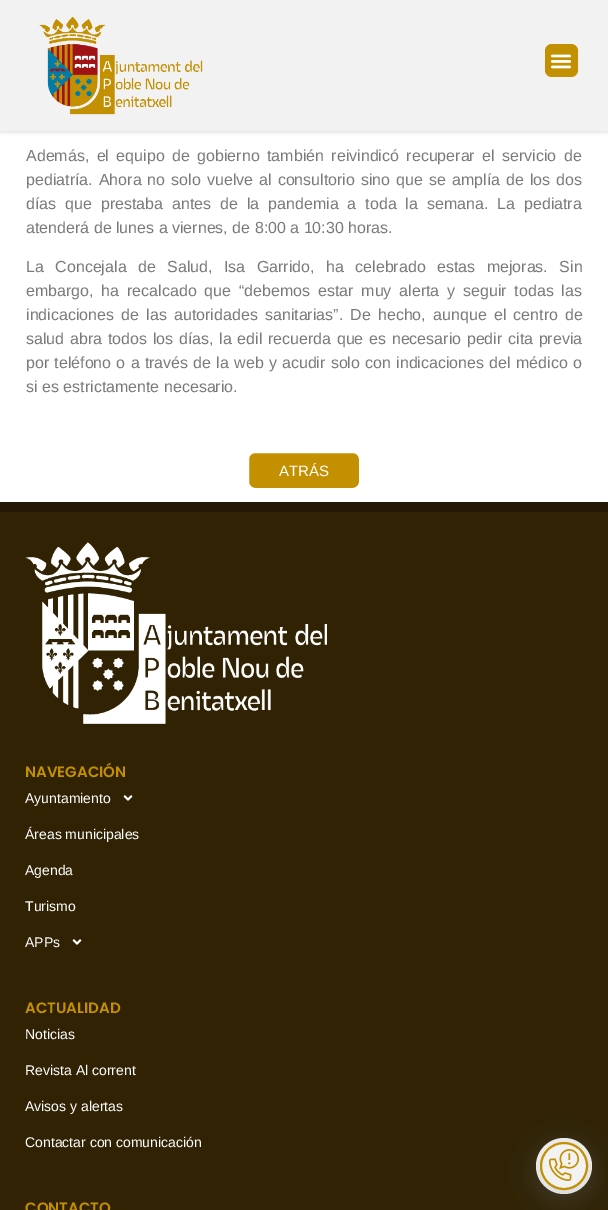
%!PS-Adobe-3.0
%%BoundingBox: 0 0 608 1210
%%LanguageLevel: 3
%%Pages: 1
%%EndComments
%%BeginProlog
/setink { dup -16 bitshift 255 div exch dup -8 bitshift 255 and 255 div exch 255 and 255 div setrgbcolor } def
/usefont { [ exch dup neg 0 0 3 -1 roll 0 0 ] selectfont } def
/setalpha { dup .setfillconstantalpha .setstrokeconstantalpha } def
/disc { newpath 0 360 arc closepath } def
/rrect { 5 dict begin { /r /h /w /y /x } { exch def } forall
  x r add y moveto x w add y 2 copy h add r arct x w add y h add x 1 index r arct
  x y h add x y r arct x y 2 copy exch w add exch r arct closepath end } def
/softshadow { 12 dict begin { /a /b /q /h /w /y /x } { exch def } forall gsave /was 0 def
  9 -2 -9 { dup b mul 4 div /e exch def 1 sub .425 mul 2.718 exch exp 1 add a .99 .min exch div /now exch def
    1 1 now sub 1 was sub div sub setalpha /was now def
    w h .min e 2 mul add 0 gt { x e sub y e sub w e 2 mul add h e 2 mul add
      q e add b .6 mul add w h .min 2 div e add .min 0 .max rrect fill } if } for grestore end } def
/drawimage { 5 dict begin { /h /w /y /x /name } { exch def } forall
  gsave x y translate w h scale
  w h 8 [w 0 0 h 0 0] name (r) file false 3 colorimage grestore end } def
%%EndProlog
%%BeginSetup
<< /PageSize [608 1210] /PageUsesTransparency true >> setpagedevice
%%EndSetup
%%Page: 1 1
0 .pushpdf14devicefilter
0 1210 translate 1 -1 scale
4 setmiterlimit
16#FFFFFF setink
0 0 608 1210 rectfill
16#000000 setink
0 0 608 131 0 2.5 0.19 softshadow
16#F2F2F2 setink
0 0 608 131 rectfill
(img1.raw) 39 16 164 99 drawimage
16#C39001 setink
545 44 33 33 7 rrect fill
(img2.raw) 550 54 22 15 drawimage
/LiberationSans-Regular 16 usefont
16#7A7A7A setink
26 161 moveto 3 0 32 (Además, el equipo de gobierno también reivindicó recuperar el servicio de) widthshow
26 185 moveto 1.6 0 32 (pediatría. Ahora no solo vuelve al consultorio sino que se amplía de los dos) widthshow
26 209 moveto 4.5 0 32 (días que prestaba antes de la pandemia a toda la semana. La pediatra) widthshow
26 233 moveto (atenderá de lunes a viernes, de 8:00 a 10:30 horas.) show
26 272 moveto 7 0 32 (La Concejala de Salud, Isa Garrido, ha celebrado estas mejoras. Sin) widthshow
26 296 moveto 3.4 0 32 (embargo, ha recalcado que “debemos estar muy alerta y seguir todas las) widthshow
26 320 moveto 2.75 0 32 (indicaciones de las autoridades sanitarias”. De hecho, aunque el centro de) widthshow
26 344 moveto 1.25 0 32 (salud abra todos los días, la edil recuerda que es necesario pedir cita previa) widthshow
26 368 moveto 0.75 0 32 (por teléfono o a través de la web y acudir solo con indicaciones del médico o) widthshow
26 392 moveto (si es estrictamente necesario.) show
16#C39001 setink
248 452 112 37 7 rrect gsave fill grestore
16#FFFFFF setink
2 setlinewidth
stroke
/LiberationSans-Regular 15 usefont
279 476 moveto (ATRÁS) show
16#231803 setink
0 502 608 10 rectfill
16#302203 setink
0 512 608 698 rectfill
(img3.raw) 25 542 302 182 drawimage
/Poppins-SemiBold 15 usefont
16#C39001 setink
25 777 moveto (NAVEGACIÓN) show
/LiberationSans-Regular 14 usefont
16#FFFFFF setink
25 803 moveto (Ayuntamiento) show
(img4.raw) 123 795 10 6 drawimage
[
    [(Áreas municipales) 25 839]
    [(Agenda) 25 875]
    [(Turismo) 25 911]
    [(APPs) 25 947]
] { aload pop moveto show } forall
(img4.raw) 72 939 10 6 drawimage
/Poppins-SemiBold 15 usefont
16#C39001 setink
25 1013 moveto (ACTUALIDAD) show
/LiberationSans-Regular 14 usefont
16#FFFFFF setink
[
    [(Noticias) 25 1039]
    [(Revista Al corrent) 25 1075]
    [(Avisos y alertas) 25 1111]
    [(Contactar con comunicación) 25 1147]
] { aload pop moveto show } forall
/Poppins-SemiBold 15 usefont
16#C39001 setink
25 1213 moveto (CONTACTO) show
16#64646F setink
536 1145 56 56 28 14.5 0.2 softshadow
16#F2F2F2 setink
564 1166 28 disc fill
16#64646F setink
540 1149 48 48 24 14.5 0.2 softshadow
16#F2F2F2 setink
564 1166 23 disc gsave fill grestore
16#C39001 setink
stroke
(img5.raw) 548 1149 32 32 drawimage
.poppdf14devicefilter showpage
%%EOF
